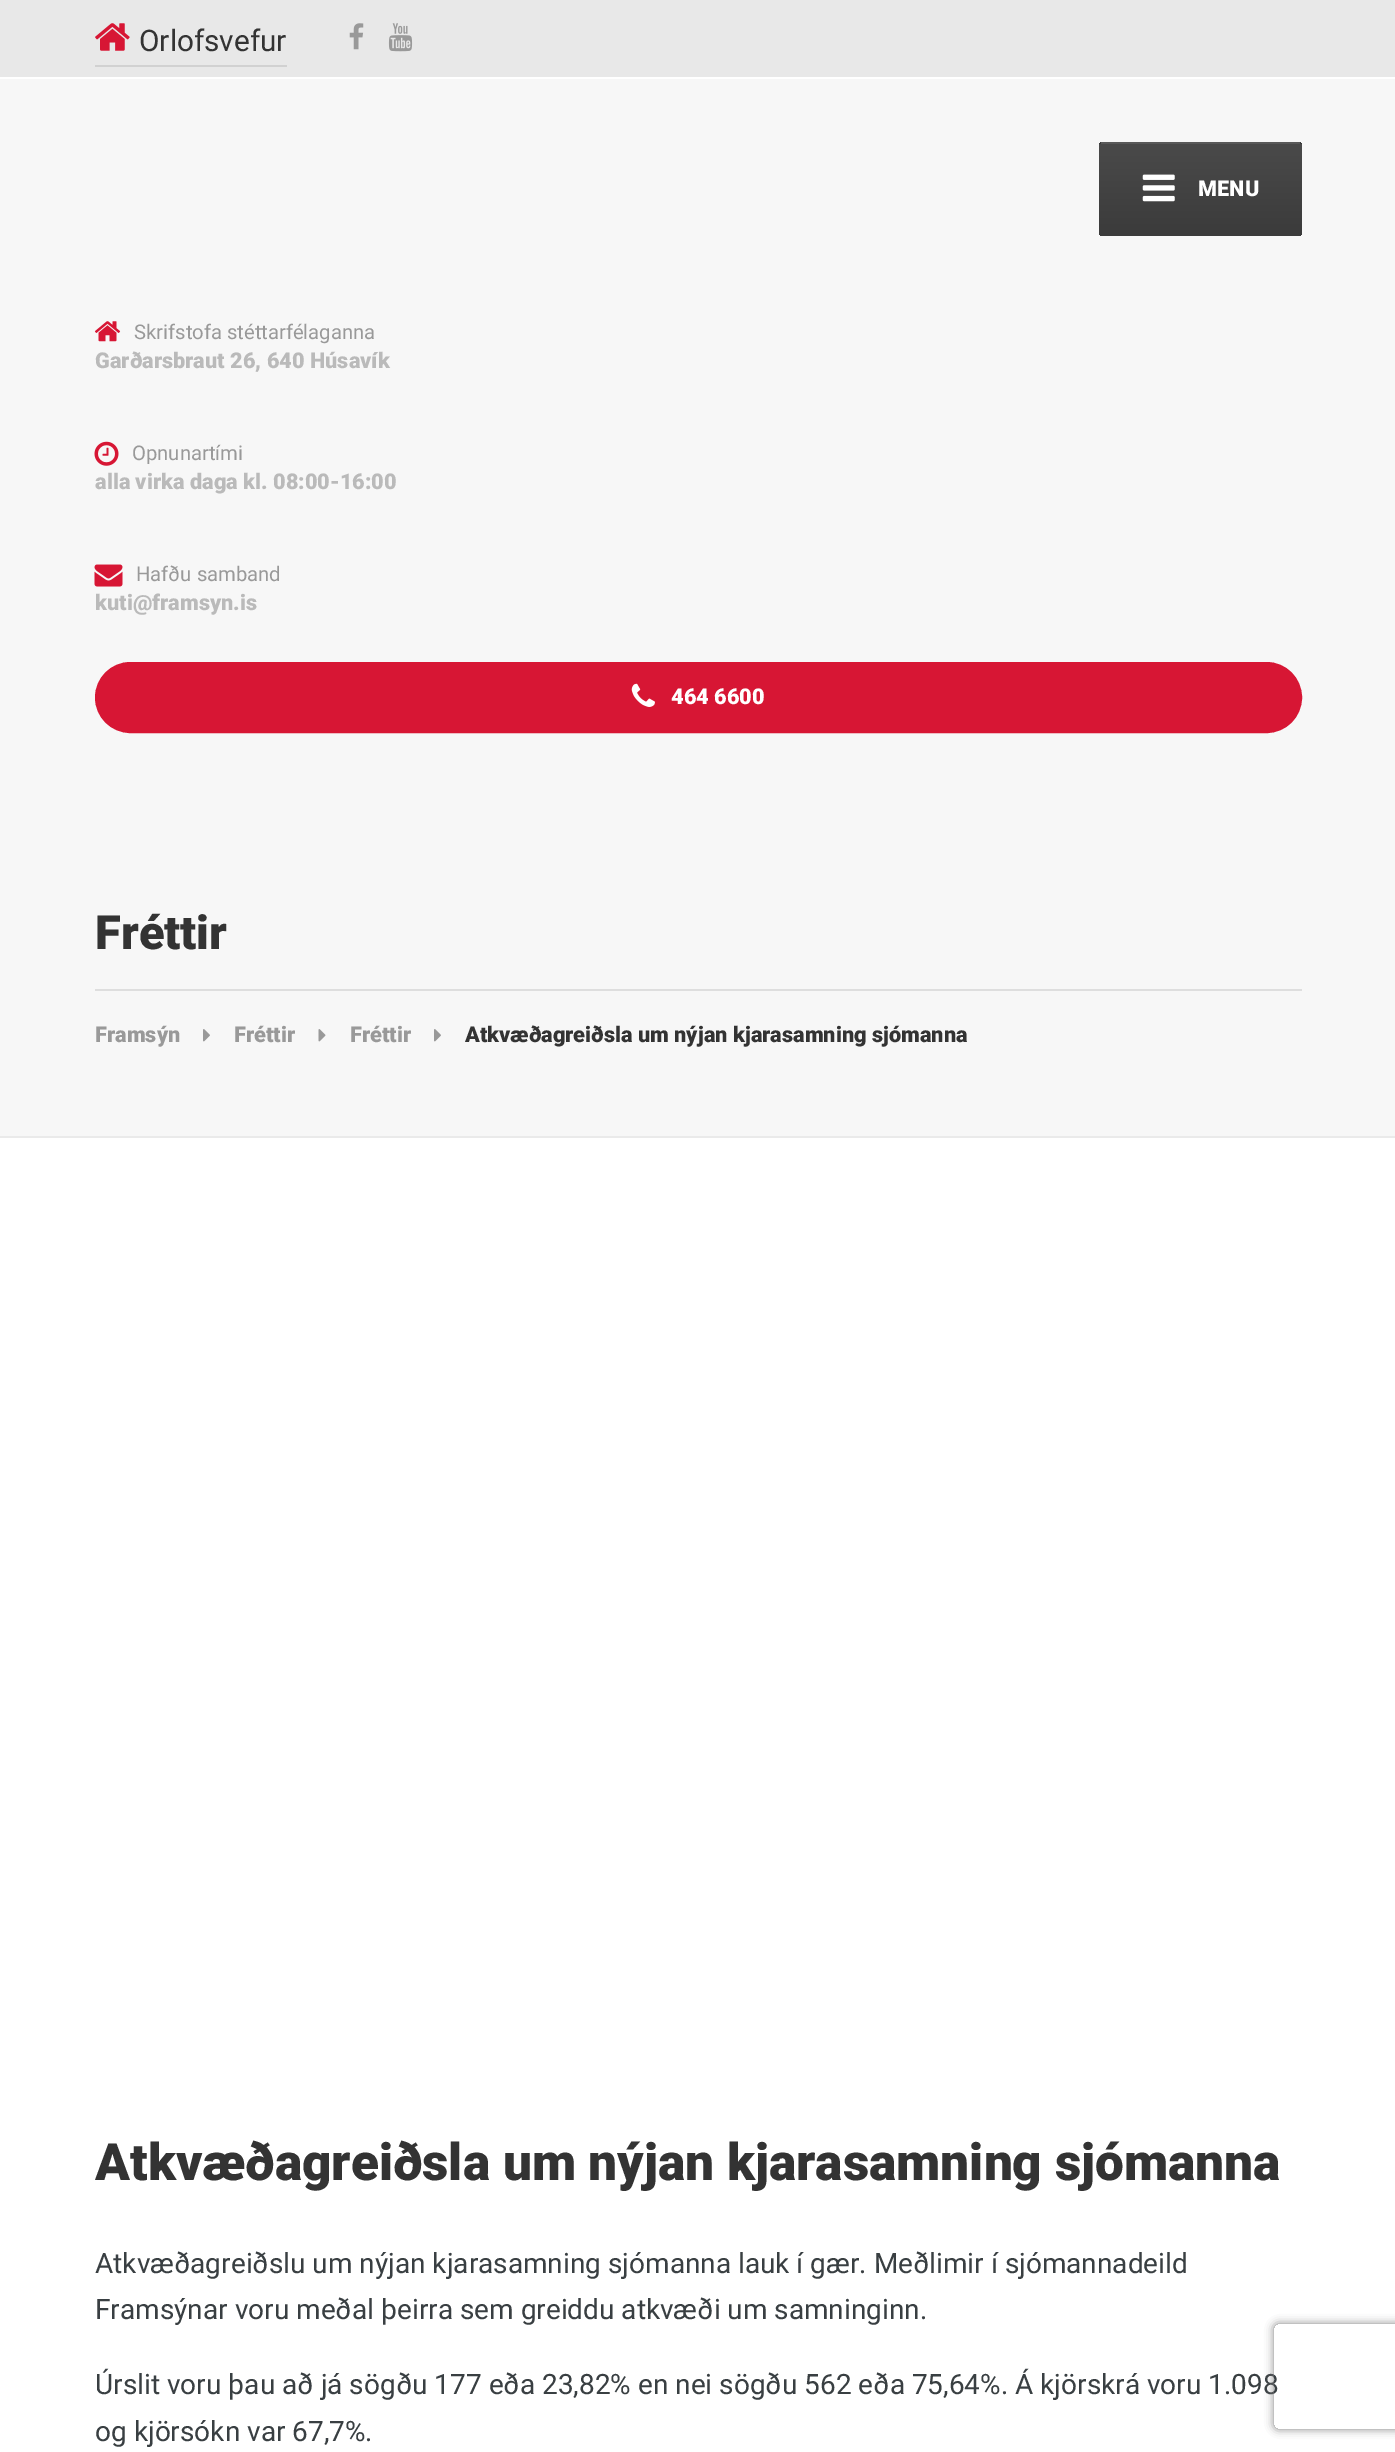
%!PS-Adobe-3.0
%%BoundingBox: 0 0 1395 2452
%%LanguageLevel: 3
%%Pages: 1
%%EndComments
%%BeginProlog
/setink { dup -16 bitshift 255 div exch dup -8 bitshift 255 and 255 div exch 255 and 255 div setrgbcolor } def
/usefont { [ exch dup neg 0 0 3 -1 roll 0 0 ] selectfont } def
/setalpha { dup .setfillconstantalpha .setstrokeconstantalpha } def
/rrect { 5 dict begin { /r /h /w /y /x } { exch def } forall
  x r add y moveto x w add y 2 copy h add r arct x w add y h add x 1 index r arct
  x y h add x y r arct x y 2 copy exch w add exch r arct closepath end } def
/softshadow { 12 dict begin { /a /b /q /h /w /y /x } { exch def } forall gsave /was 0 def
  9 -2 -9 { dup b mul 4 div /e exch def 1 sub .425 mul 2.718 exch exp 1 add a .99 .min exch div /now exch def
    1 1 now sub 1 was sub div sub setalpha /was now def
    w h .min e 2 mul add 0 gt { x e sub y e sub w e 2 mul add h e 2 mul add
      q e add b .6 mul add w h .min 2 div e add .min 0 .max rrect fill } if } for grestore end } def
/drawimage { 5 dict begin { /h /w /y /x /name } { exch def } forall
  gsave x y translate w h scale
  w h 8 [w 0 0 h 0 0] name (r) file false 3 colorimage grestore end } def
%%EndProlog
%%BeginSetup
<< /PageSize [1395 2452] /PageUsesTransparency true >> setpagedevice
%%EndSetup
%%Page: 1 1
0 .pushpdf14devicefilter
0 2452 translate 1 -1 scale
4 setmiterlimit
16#FFFFFF setink
0 0 1395 2452 rectfill
16#E8E8E8 setink
0 0 1395 77 rectfill
16#D1D1D1 setink
95 65 192 2 rectfill
(img1.raw) 95 23 35 28 drawimage
/Roboto-Regular 29.75 usefont
16#333333 setink
139 51 moveto (Orlofsvefur) show
(img2.raw) 349 23 15 27 drawimage
(img3.raw) 388 23 25 29 drawimage
16#F7F7F7 setink
0 79 1395 1057 rectfill
16#4A4A4A setink
1099 142 203 94 4 rrect fill
gsave
1099 142 203 94 4 rrect clip newpath
gsave 1099 142 moveto 1302 142 lineto 1302 144 lineto 1099 144 lineto closepath clip newpath
<< /ShadingType 2 /ColorSpace /DeviceRGB /Coords [1201 51 1201 144] /Extend [true true] /Function << /FunctionType 2 /Domain [0 1] /C0 [0.29 0.29 0.29] /C1 [0.231 0.231 0.231] /N 1 >> >> shfill grestore
gsave 1099 144 moveto 1302 144 lineto 1302 232 lineto 1302 234 1300 236 1298 236 curveto 1103 236 lineto 1101 236 1099 234 1099 232 curveto closepath clip newpath
<< /ShadingType 2 /ColorSpace /DeviceRGB /Coords [1201 144 1201 236] /Extend [true true] /Function << /FunctionType 2 /Domain [0 1] /C0 [0.29 0.29 0.29] /C1 [0.231 0.231 0.231] /N 1 >> >> shfill grestore
grestore
16#595959 setink
1101 142 199 2 rectfill
(img4.raw) 1142 174 33 28 drawimage
/Roboto-Black 21.75 usefont
16#FFFFFF setink
1198 196 moveto (MENU) show
(img5.raw) 94 321 27 21 drawimage
/Roboto-Regular 20.25 usefont
16#999999 setink
134 339 moveto (Skrifstofa stéttarfélaganna) show
/Roboto-Black 21.75 usefont
16#BABABA setink
95 368 moveto (Garðarsbraut 26, 640 Húsavík) show
(img6.raw) 94 441 25 25 drawimage
/Roboto-Regular 20.25 usefont
16#999999 setink
132 460 moveto (Opnunartími) show
/Roboto-Black 21.75 usefont
16#BABABA setink
95 489 moveto (alla virka daga kl. 08:00-16:00) show
(img7.raw) 94 564 29 23 drawimage
/Roboto-Regular 20.25 usefont
16#999999 setink
136 581 moveto (Hafðu samband) show
/Roboto-Black 21.75 usefont
16#BABABA setink
95 610 moveto (kuti@framsyn.is) show
16#D71634 setink
96 663 1205 69 34.5 rrect gsave fill grestore
2 setlinewidth
stroke
(img8.raw) 631 683 24 24 drawimage
16#FFFFFF setink
671 704 moveto (464 6600) show
16#EAEAEA setink
0 1136 1395 2 rectfill
/Roboto-Black 47 usefont
16#333333 setink
95 949 moveto (Fréttir) show
16#DEDEDE setink
95 989 1207 2 rectfill
/Roboto-Black 21.75 usefont
16#999999 setink
95 1042 moveto (Framsýn) show
(img9.raw) 203 1029 7 13 drawimage
234 1042 moveto (Fréttir) show
(img10.raw) 318 1029 8 13 drawimage
350 1042 moveto (Fréttir) show
(img9.raw) 434 1029 7 13 drawimage
16#333333 setink
465 1042 moveto (Atkvæðagreiðsla um nýjan kjarasamning sjómanna) show
/Roboto-Black 51.3 usefont
95 2180 moveto (Atkvæðagreiðsla um nýjan kjarasamning sjómanna) show
/Roboto-Regular 28 usefont
16#393F42 setink
[
    [(Atkvæðagreiðslu um nýjan kjarasamning sjómanna lauk í gær. Meðlimir í sjómannadeild) 95 2273]
    [(Framsýnar voru meðal þeirra sem greiddu atkvæði um samninginn.) 95 2319]
    [(Úrslit voru þau að já sögðu 177 eða 23,82% en nei sögðu 562 eða 75,64%. Á kjörskrá voru 1.098) 95 2394]
    [(og kjörsókn var 67,7%.) 95 2441]
] { aload pop moveto show } forall
gsave
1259 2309 moveto 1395 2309 lineto 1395 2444 lineto 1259 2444 lineto closepath 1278 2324 moveto 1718 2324 lineto 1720 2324 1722 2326 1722 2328 curveto 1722 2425 lineto 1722 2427 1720 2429 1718 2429 curveto 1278 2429 lineto 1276 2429 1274 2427 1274 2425 curveto 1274 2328 lineto 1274 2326 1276 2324 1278 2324 curveto closepath eoclip newpath
16#808080 setink
1274 2324 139 105 4 4.5 1 softshadow
grestore
.poppdf14devicefilter showpage
%%EOF
